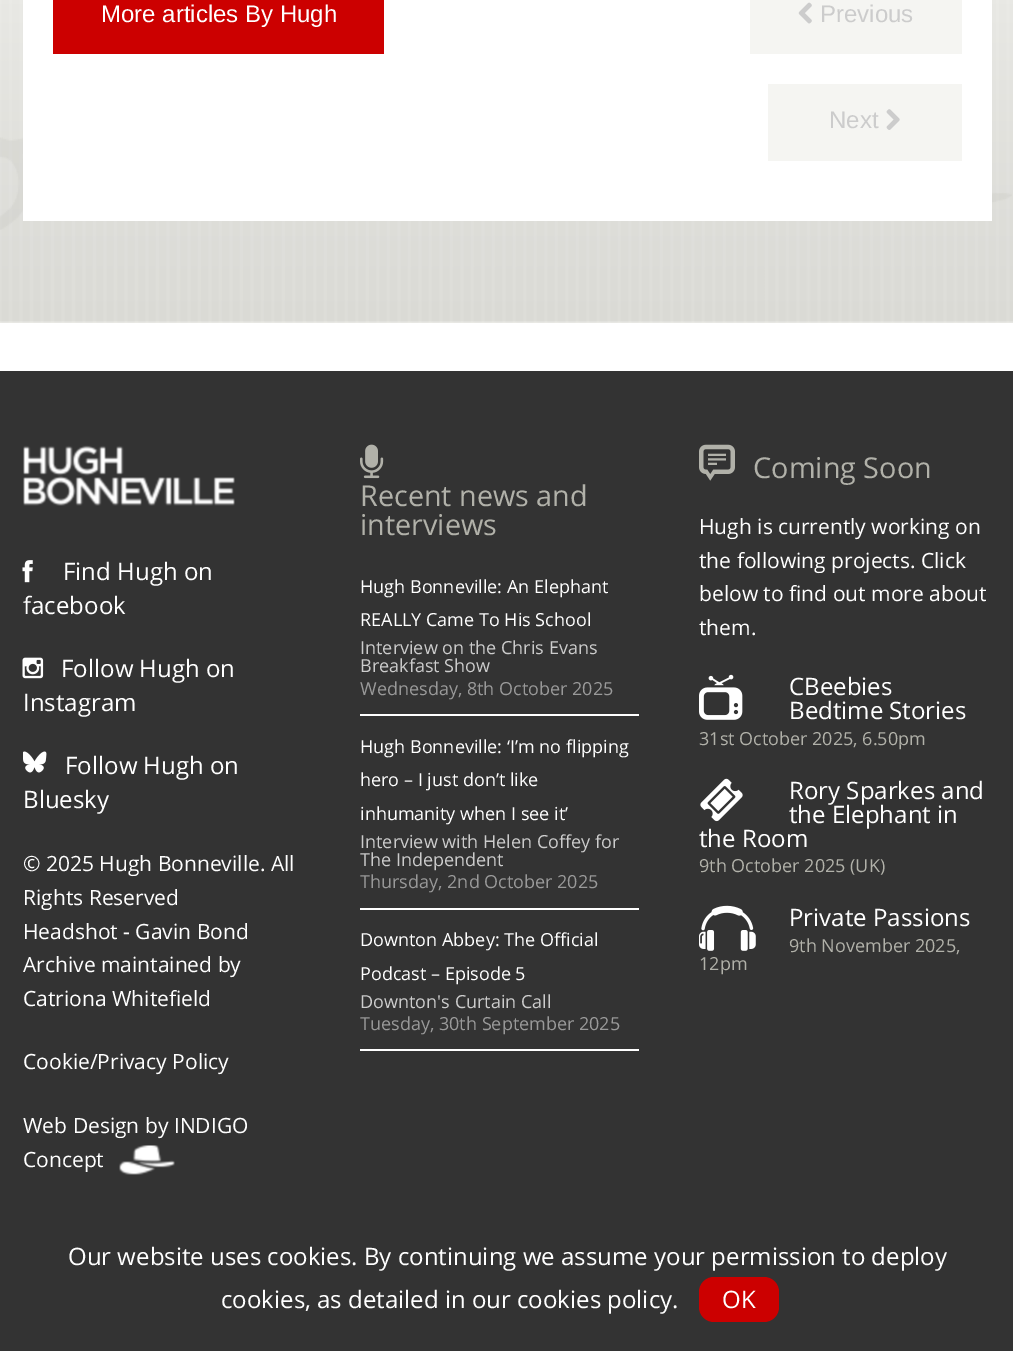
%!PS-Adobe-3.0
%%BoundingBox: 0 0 1013 1351
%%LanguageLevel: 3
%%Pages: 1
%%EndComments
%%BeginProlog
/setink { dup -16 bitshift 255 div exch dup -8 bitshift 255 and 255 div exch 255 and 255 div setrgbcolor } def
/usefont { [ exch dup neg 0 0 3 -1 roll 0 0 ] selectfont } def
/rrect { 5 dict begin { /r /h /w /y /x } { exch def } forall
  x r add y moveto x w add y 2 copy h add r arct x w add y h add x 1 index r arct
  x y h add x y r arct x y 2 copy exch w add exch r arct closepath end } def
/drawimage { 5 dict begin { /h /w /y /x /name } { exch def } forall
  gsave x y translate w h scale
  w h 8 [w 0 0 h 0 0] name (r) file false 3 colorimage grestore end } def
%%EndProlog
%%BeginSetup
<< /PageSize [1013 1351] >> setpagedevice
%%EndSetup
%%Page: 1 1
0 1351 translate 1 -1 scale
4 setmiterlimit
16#FFFFFF setink
0 0 1013 1351 rectfill
16#F5F5F2 setink
0 321 1013 2 rectfill
(img1.raw) 0 0 1013 323 drawimage
(img4.raw) 0 137 1012 93 drawimage
16#FFFFFF setink
23 0 969 221 rectfill
16#CC0000 setink
53 0 331 54 rectfill
/LiberationSans-Regular 24 usefont
16#FFFFFF setink
101 22 moveto (More articles By Hugh) show
16#F5F5F2 setink
750 0 212 54 rectfill
(img2.raw) 798 2 14 22 drawimage
16#CCCCCC setink
820 22 moveto (Previous) show
16#F5F5F2 setink
768 84 194 77 rectfill
16#CCCCCC setink
829 128 moveto (Next) show
(img3.raw) 886 109 14 21 drawimage
16#333333 setink
0 371 1013 980 rectfill
(img5.raw) 23 445 212 61 drawimage
(img6.raw) 22 560 11 23 drawimage
/OpenSans-Regular 24 usefont
16#FFFFFF setink
63 580 moveto (Find Hugh on) show
23 614 moveto (facebook) show
(img7.raw) 22 657 22 22 drawimage
61 677 moveto (Follow Hugh on) show
23 711 moveto (Instagram) show
(img8.raw) 23 751 24 22 drawimage
65 774 moveto (Follow Hugh on) show
23 808 moveto (Bluesky) show
/OpenSans-Regular 21 usefont
[
    [(© 2025 Hugh Bonneville. All) 23 871]
    [(Rights Reserved) 23 905]
    [(Headshot - Gavin Bond) 23 939]
    [(Archive maintained by) 23 972]
    [(Catriona Whitefield) 23 1006]
    [(Cookie/Privacy Policy) 23 1069]
    [(Web Design by INDIGO) 23 1133]
    [(Concept) 23 1167]
] { aload pop moveto show } forall
(img9.raw) 119 1145 56 30 drawimage
(img10.raw) 360 444 24 35 drawimage
/OpenSans-Regular 28.75 usefont
16#B1B1A9 setink
360 506 moveto (Recent news and) show
360 535 moveto (interviews) show
16#FFFFFF setink
360 714 279 2 rectfill
/OpenSans-Regular 18 usefont
360 593 moveto (Hugh Bonneville: An Elephant) show
360 626 moveto (REALLY Came To His School) show
16#CCCCCC setink
360 654 moveto (Interview on the Chris Evans) show
360 672 moveto (Breakfast Show) show
16#999999 setink
360 695 moveto (Wednesday, 8th October 2025) show
16#FFFFFF setink
360 908 279 2 rectfill
[
    [(Hugh Bonneville: ‘I’m no flipping) 360 753]
    [(hero – I just don’t like) 360 786]
    [(inhumanity when I see it’) 360 820]
] { aload pop moveto show } forall
16#CCCCCC setink
360 848 moveto (Interview with Helen Coffey for) show
360 866 moveto (The Independent) show
16#999999 setink
360 888 moveto (Thursday, 2nd October 2025) show
16#FFFFFF setink
360 1049 279 2 rectfill
360 946 moveto (Downton Abbey: The Official) show
360 980 moveto (Podcast – Episode 5) show
16#CCCCCC setink
360 1008 moveto (Downton's Curtain Call) show
16#999999 setink
360 1030 moveto (Tuesday, 30th September 2025) show
(img11.raw) 699 444 36 37 drawimage
/OpenSans-Regular 28.75 usefont
16#B1B1A9 setink
753 478 moveto (Coming Soon) show
/OpenSans-Regular 21 usefont
16#FFFFFF setink
[
    [(Hugh is currently working on) 699 534]
    [(the following projects. Click) 699 568]
    [(below to find out more about) 699 601]
    [(them.) 699 635]
] { aload pop moveto show } forall
(img12.raw) 699 674 44 46 drawimage
/OpenSans-Regular 24 usefont
789 695 moveto (CBeebies) show
789 719 moveto (Bedtime Stories) show
/OpenSans-Regular 18 usefont
16#B1B1A9 setink
699 745 moveto (31st October 2025, 6.50pm) show
(img13.raw) 700 778 43 44 drawimage
/OpenSans-Regular 24 usefont
16#FFFFFF setink
[
    [(Rory Sparkes and) 789 799]
    [(the Elephant in) 789 823]
    [(the Room) 699 847]
] { aload pop moveto show } forall
/OpenSans-Regular 18 usefont
16#B1B1A9 setink
699 872 moveto (9th October 2025 \(UK\)) show
(img14.raw) 699 905 57 46 drawimage
/OpenSans-Regular 24 usefont
16#FFFFFF setink
789 926 moveto (Private Passions) show
/OpenSans-Regular 18 usefont
16#B1B1A9 setink
789 952 moveto (9th November 2025,) show
699 970 moveto (12pm) show
/OpenSans-Regular 24 usefont
16#FFFFFF setink
68 1265 moveto (Our website uses cookies. By continuing we assume your permission to deploy) show
221 1308 moveto (cookies, as detailed in our cookies policy.) show
16#CC0000 setink
699 1277 80 45 15 rrect fill
16#FFFFFF setink
722 1308 moveto (OK) show
showpage
%%EOF
